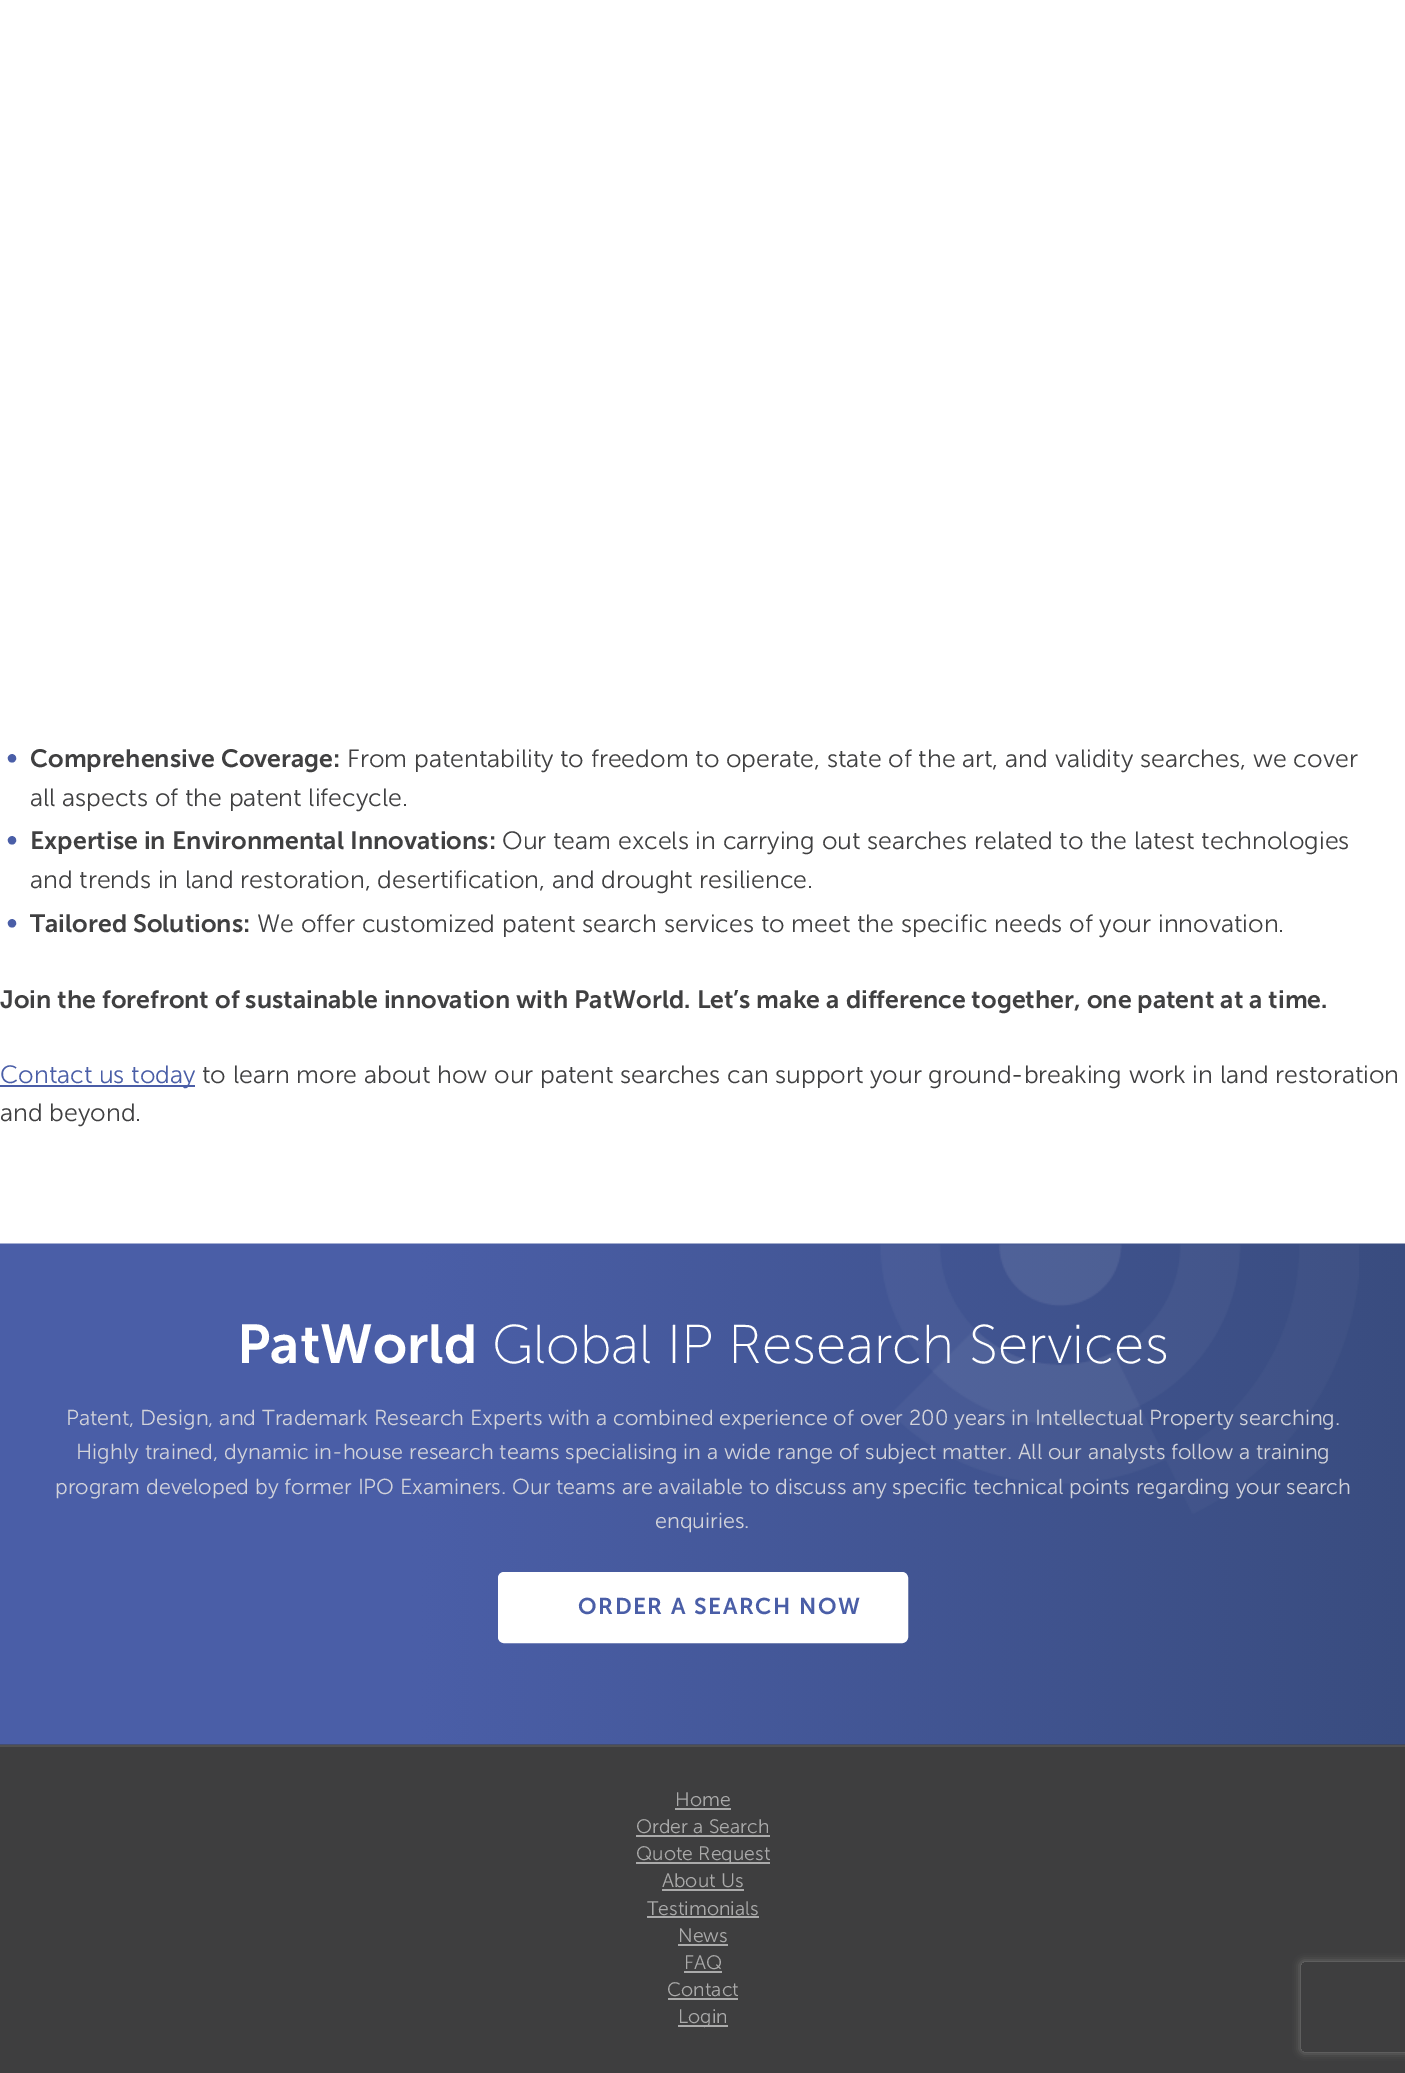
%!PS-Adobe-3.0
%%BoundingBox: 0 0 1405 2073
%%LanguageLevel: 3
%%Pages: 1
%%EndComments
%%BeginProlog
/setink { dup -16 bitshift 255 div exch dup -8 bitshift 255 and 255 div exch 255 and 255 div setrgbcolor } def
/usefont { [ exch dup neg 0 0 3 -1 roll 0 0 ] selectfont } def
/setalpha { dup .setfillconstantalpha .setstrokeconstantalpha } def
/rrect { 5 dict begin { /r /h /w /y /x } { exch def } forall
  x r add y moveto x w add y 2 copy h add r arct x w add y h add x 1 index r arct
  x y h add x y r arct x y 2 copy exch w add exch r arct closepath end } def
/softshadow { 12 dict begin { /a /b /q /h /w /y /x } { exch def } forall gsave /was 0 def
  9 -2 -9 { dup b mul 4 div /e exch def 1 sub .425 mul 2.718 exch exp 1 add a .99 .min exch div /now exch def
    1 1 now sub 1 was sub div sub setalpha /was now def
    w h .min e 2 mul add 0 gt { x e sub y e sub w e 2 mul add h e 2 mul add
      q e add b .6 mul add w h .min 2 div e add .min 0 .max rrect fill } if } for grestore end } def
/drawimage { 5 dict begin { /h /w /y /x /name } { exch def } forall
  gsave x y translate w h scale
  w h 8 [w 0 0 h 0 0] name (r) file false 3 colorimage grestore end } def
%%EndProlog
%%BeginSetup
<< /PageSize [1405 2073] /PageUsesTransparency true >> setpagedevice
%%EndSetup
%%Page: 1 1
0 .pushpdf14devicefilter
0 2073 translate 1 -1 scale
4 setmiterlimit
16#FFFFFF setink
0 0 1405 2073 rectfill
/MuseoSans-Light 30 usefont
16#4A5EA7 setink
6 767 moveto (•) show
/MuseoSans-SemiBold 25 usefont
16#404041 setink
30 767 moveto (Comprehensive Coverage:) show
/MuseoSans-Light 25 usefont
347 767 moveto (From patentability to freedom to operate, state of the art, and validity searches, we cover) show
30 806 moveto (all aspects of the patent lifecycle.) show
/MuseoSans-Light 30 usefont
16#4A5EA7 setink
6 849 moveto (•) show
/MuseoSans-SemiBold 25 usefont
16#404041 setink
30 849 moveto (Expertise in Environmental Innovations:) show
/MuseoSans-Light 25 usefont
502 849 moveto (Our team excels in carrying out searches related to the latest technologies) show
30 888 moveto (and trends in land restoration, desertification, and drought resilience.) show
/MuseoSans-Light 30 usefont
16#4A5EA7 setink
6 932 moveto (•) show
/MuseoSans-SemiBold 25 usefont
16#404041 setink
30 932 moveto (Tailored Solutions:) show
/MuseoSans-Light 25 usefont
257 932 moveto (We offer customized patent search services to meet the specific needs of your innovation.) show
/MuseoSans-SemiBold 25 usefont
0 1008 moveto (Join the forefront of sustainable innovation with PatWorld. Let’s make a difference together, one patent at a time.) show
16#4A5DA7 setink
0 1085 195 2 rectfill
/MuseoSans-Light 25 usefont
16#4A5EA7 setink
0 1083 moveto (Contact us today) show
16#404041 setink
202 1083 moveto (to learn more about how our patent searches can support your ground-breaking work in land restoration) show
0 1121 moveto (and beyond.) show
16#3E3E3F setink
0 1744 1405 1 rectfill
(img1.raw) 0 1243 1405 502 drawimage
/MuseoSans-SemiBold 54.5 usefont
16#FFFFFF setink
237 1363 moveto (PatWorld) show
/MuseoSans-Thin 54.5 usefont
492 1363 moveto (Global IP Research Services) show
/MuseoSans-Light 21.6 usefont
16#D2D3DA setink
[
    [(Patent, Design, and Trademark Research Experts with a combined experience of over 200 years in Intellectual Property searching.) 66 1425]
    [(Highly trained, dynamic in-house research teams specialising in a wide range of subject matter. All our analysts follow a training) 76 1459]
    [(program developed by former IPO Examiners. Our teams are available to discuss any specific technical points regarding your search) 55 1494]
    [(enquiries.) 655 1528]
] { aload pop moveto show } forall
16#FFFFFF setink
499 1573 408 69 5 rrect gsave fill grestore
2 setlinewidth
stroke
/MuseoSans-SemiBold 22.75 usefont
16#4A5EA7 setink
578 1614 moveto 1.5 0 (ORDER A SEARCH NOW) ashow
16#3E3E3F setink
0 1747 1405 326 rectfill
16#515151 setink
0 1745 1405 2 rectfill
/MuseoSans-Light 19.5 usefont
16#AAAAAA setink
675 1806 moveto (Home) show
675 1808 56 2 rectfill
636 1833 moveto (Order a Search) show
636 1835 134 2 rectfill
636 1862 134 2 rectfill
636 1860 moveto (Quote Request) show
662 1887 moveto (About Us) show
662 1889 82 2 rectfill
647 1915 moveto (Testimonials) show
647 1916 112 2 rectfill
678 1942 moveto (News) show
678 1944 50 2 rectfill
684 1969 moveto (FAQ) show
684 1971 38 2 rectfill
667 1996 moveto (Contact) show
668 1998 70 2 rectfill
678 2025 50 2 rectfill
678 2023 moveto (Login) show
gsave
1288 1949 moveto 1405 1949 lineto 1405 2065 lineto 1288 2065 lineto closepath 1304 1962 moveto 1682 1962 lineto 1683.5 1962 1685 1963.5 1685 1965 curveto 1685 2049 lineto 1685 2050.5 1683.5 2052 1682 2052 curveto 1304 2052 lineto 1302.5 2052 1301 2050.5 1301 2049 curveto 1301 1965 lineto 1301 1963.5 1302.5 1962 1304 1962 curveto closepath eoclip newpath
16#808080 setink
1301 1962 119 90 3 4 1 softshadow
grestore
.poppdf14devicefilter showpage
%%EOF
